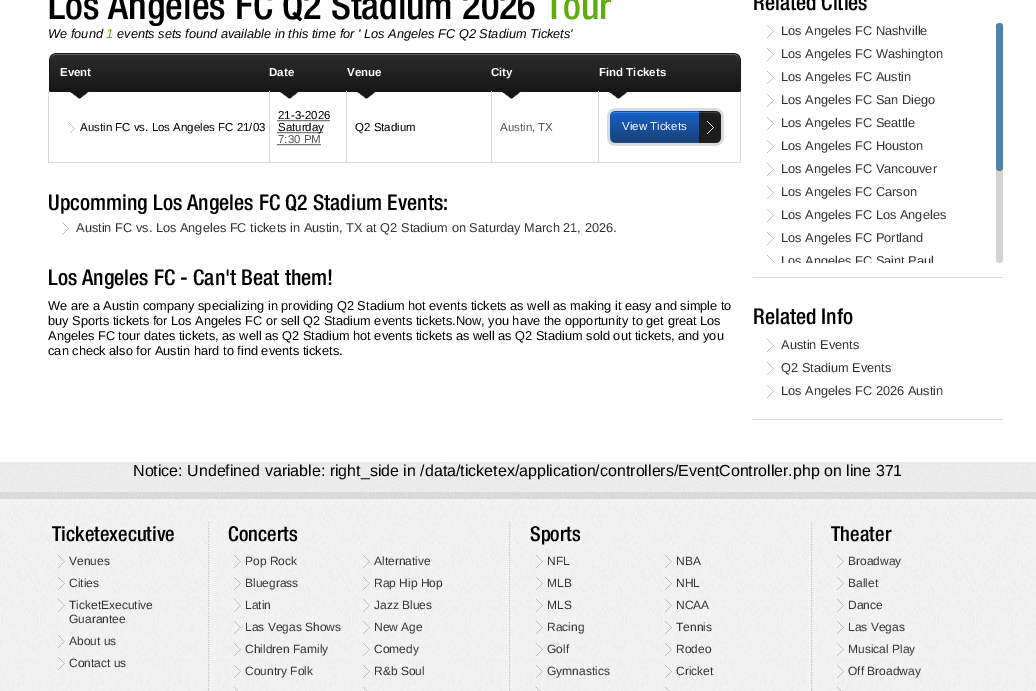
%!PS-Adobe-3.0
%%BoundingBox: 0 0 1036 691
%%LanguageLevel: 3
%%Pages: 1
%%EndComments
%%BeginProlog
/setink { dup -16 bitshift 255 div exch dup -8 bitshift 255 and 255 div exch 255 and 255 div setrgbcolor } def
/usefont { [ exch dup neg 0 0 3 -1 roll 0 0 ] selectfont } def
/rrect { 5 dict begin { /r /h /w /y /x } { exch def } forall
  x r add y moveto x w add y 2 copy h add r arct x w add y h add x 1 index r arct
  x y h add x y r arct x y 2 copy exch w add exch r arct closepath end } def
/drawimage { 5 dict begin { /h /w /y /x /name } { exch def } forall
  gsave x y translate w h scale
  w h 8 [w 0 0 h 0 0] name (r) file false 3 colorimage grestore end } def
%%EndProlog
%%BeginSetup
<< /PageSize [1036 691] >> setpagedevice
%%EndSetup
%%Page: 1 1
0 691 translate 1 -1 scale
4 setmiterlimit
16#FFFFFF setink
0 0 1036 691 rectfill
(img1.raw) 0 462 1036 30 drawimage
/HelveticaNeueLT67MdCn-Medium 38.4 usefont
16#000000 setink
48 19 moveto (Los Angeles FC Q2 Stadium 2026) show
16#5EAF08 setink
545 19 moveto (Tour) show
/LiberationSans-Italic 12.8 usefont
16#000000 setink
48 38 moveto (We found) show
16#5EAF08 setink
106 38 moveto (1) show
16#000000 setink
117 38 moveto (events sets found available in this time for ' Los Angeles FC Q2 Stadium Tickets') show
(img2.raw) 56 53 4 39 drawimage
(img3.raw) 49 53 7 39 drawimage
(img4.raw) 60 53 209 39 drawimage
/LiberationSans-Bold 11.5 usefont
16#FFFFFF setink
60 76 moveto (Event) show
(img5.raw) 269 53 78 39 drawimage
269 76 moveto (Date) show
(img6.raw) 347 53 144 39 drawimage
347 76 moveto (Venue) show
(img7.raw) 491 53 108 39 drawimage
491 76 moveto (City) show
(img8.raw) 599 53 130 39 drawimage
599 76 moveto (Find Tickets) show
(img9.raw) 729 53 5 39 drawimage
16#D9D9D9 setink
740 91 1 72 rectfill
(img10.raw) 734 53 7 39 drawimage
[
    [598 162 143 1 16#D9D9D9]
    [598 91 1 72 16#D9D9D9]
    [491 162 108 1 16#D9D9D9]
    [491 91 1 72 16#D9D9D9]
    [346 162 146 1 16#D9D9D9]
    [346 91 1 72 16#D9D9D9]
    [269 162 78 1 16#D9D9D9]
    [269 91 1 72 16#D9D9D9]
    [48 162 222 1 16#D9D9D9]
    [48 91 1 72 16#D9D9D9]
] { aload pop setink rectfill } forall
(img11.raw) 280 92 19 7 drawimage
/LiberationSans-Regular 11.5 usefont
16#000000 setink
278 119 moveto (21-3-2026) show
[1 1] 0 setdash
277.5 120.5 moveto 330 120.5 lineto stroke
277.5 132.5 moveto 323.5 132.5 lineto stroke
278 131 moveto (Saturday) show
16#555555 setink
278 143 moveto (7:30 PM) show
16#000000 setink
277.5 144.5 moveto 320.5 144.5 lineto stroke
(img11.raw) 70 92 19 7 drawimage
(img12.raw) 68 122 7 11 drawimage
80 131 moveto (Austin FC vs. Los Angeles FC 21/03) show
(img11.raw) 357 92 19 7 drawimage
355 131 moveto (Q2 Stadium) show
(img11.raw) 502 92 19 7 drawimage
16#555555 setink
500 131 moveto (Austin, TX) show
(img11.raw) 609 92 19 7 drawimage
(img13.raw) 607 108 117 38 drawimage
16#FFFFFF setink
622 130 moveto (View Tickets) show
/HelveticaNeueLT67MdCn-Medium 21.75 usefont
16#000000 setink
48 210 moveto (Upcomming Los Angeles FC Q2 Stadium Events:) show
(img14.raw) 62 222 7 13 drawimage
/LiberationSans-Regular 12.8 usefont
16#333333 setink
76 232 moveto (Austin FC vs. Los Angeles FC tickets in Austin, TX at Q2 Stadium on Saturday March 21, 2026.) show
/HelveticaNeueLT67MdCn-Medium 21.75 usefont
16#000000 setink
48 285 moveto (Los Angeles FC - Can't Beat them!) show
/LiberationSans-Regular 12.8 usefont
[
    [(We are a Austin company specializing in providing Q2 Stadium hot events tickets as well as making it easy and simple to) 48 310]
    [(buy Sports tickets for Los Angeles FC or sell Q2 Stadium events tickets.Now, you have the opportunity to get great Los) 48 325]
    [(Angeles FC tour dates tickets, as well as Q2 Stadium hot events tickets as well as Q2 Stadium sold out tickets, and you) 48 340]
    [(can check also for Austin hard to find events tickets.) 48 355]
] { aload pop moveto show } forall
16#D9D9D9 setink
753 277 250 1 rectfill
/HelveticaNeueLT67MdCn-Medium 21.75 usefont
16#000000 setink
753 10 moveto (Related Cities) show
(img14.raw) 767 25 7 13 drawimage
/LiberationSans-Regular 12.8 usefont
16#333333 setink
781 35 moveto (Los Angeles FC Nashville) show
(img14.raw) 767 48 7 13 drawimage
781 58 moveto (Los Angeles FC Washington) show
(img14.raw) 767 71 7 13 drawimage
781 81 moveto (Los Angeles FC Austin) show
(img14.raw) 767 94 7 13 drawimage
781 104 moveto (Los Angeles FC San Diego) show
(img14.raw) 767 117 7 13 drawimage
781 127 moveto (Los Angeles FC Seattle) show
(img14.raw) 767 140 7 13 drawimage
781 150 moveto (Los Angeles FC Houston) show
(img14.raw) 767 163 7 13 drawimage
781 173 moveto (Los Angeles FC Vancouver) show
(img14.raw) 767 186 7 13 drawimage
781 196 moveto (Los Angeles FC Carson) show
(img14.raw) 767 209 7 13 drawimage
781 219 moveto (Los Angeles FC Los Angeles) show
(img14.raw) 767 232 7 13 drawimage
781 242 moveto (Los Angeles FC Portland) show
(img15.raw) 767 255 7 8 drawimage
gsave
753 23 250 240 rectclip
781 265 moveto (Los Angeles FC Saint Paul) show
grestore
16#D3D3D3 setink
996 23 7 240 3.5 rrect fill
16#5482A7 setink
996 23 7 148 3.5 rrect fill
16#D9D9D9 setink
753 419 250 1 rectfill
/HelveticaNeueLT67MdCn-Medium 21.75 usefont
16#000000 setink
753 324 moveto (Related Info) show
(img14.raw) 767 339 7 13 drawimage
/LiberationSans-Regular 12.8 usefont
16#333333 setink
781 349 moveto (Austin Events) show
(img14.raw) 767 362 7 13 drawimage
781 372 moveto (Q2 Stadium Events) show
(img14.raw) 767 385 7 13 drawimage
781 395 moveto (Los Angeles FC 2026 Austin) show
/LiberationSans-Regular 16 usefont
16#000000 setink
133 476 moveto (Notice: Undefined variable: right_side in /data/ticketex/application/controllers/EventController.php on line 371) show
(img16.raw) 0 492 1036 199 drawimage
16#C6C6C6 setink
208.5 522 moveto 208.5 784 lineto stroke
/HelveticaNeueLT67MdCn-Medium 20.5 usefont
16#000000 setink
52 541 moveto (Ticketexecutive) show
(img17.raw) 58 555 7 13 drawimage
/LiberationSans-Regular 12 usefont
16#333333 setink
69 565 moveto (Venues) show
(img18.raw) 58 577 7 13 drawimage
69 587 moveto (Cities) show
(img19.raw) 58 599 7 13 drawimage
69 609 moveto (TicketExecutive) show
69 623 moveto (Guarantee) show
(img20.raw) 58 635 7 13 drawimage
69 645 moveto (About us) show
(img21.raw) 58 657 7 13 drawimage
69 667 moveto (Contact us) show
16#C6C6C6 setink
509.5 522 moveto 509.5 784 lineto stroke
/HelveticaNeueLT67MdCn-Medium 20.5 usefont
16#000000 setink
228 541 moveto (Concerts) show
(img22.raw) 234 555 7 13 drawimage
/LiberationSans-Regular 12 usefont
16#333333 setink
245 565 moveto (Pop Rock) show
(img23.raw) 363 555 7 13 drawimage
374 565 moveto (Alternative) show
(img24.raw) 234 577 7 13 drawimage
245 587 moveto (Bluegrass) show
(img25.raw) 363 577 7 13 drawimage
374 587 moveto (Rap Hip Hop) show
(img26.raw) 234 599 7 13 drawimage
245 609 moveto (Latin) show
(img27.raw) 363 599 7 13 drawimage
374 609 moveto (Jazz Blues) show
(img28.raw) 234 621 7 13 drawimage
245 631 moveto (Las Vegas Shows) show
(img29.raw) 363 621 7 13 drawimage
374 631 moveto (New Age) show
(img30.raw) 234 643 7 13 drawimage
245 653 moveto (Children Family) show
(img31.raw) 363 643 7 13 drawimage
374 653 moveto (Comedy) show
(img32.raw) 234 665 7 13 drawimage
245 675 moveto (Country Folk) show
(img33.raw) 363 665 7 13 drawimage
374 675 moveto (R&b Soul) show
(img34.raw) 234 687 4 4 drawimage
(img35.raw) 363 687 4 4 drawimage
16#C6C6C6 setink
811.5 522 moveto 811.5 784 lineto stroke
/HelveticaNeueLT67MdCn-Medium 20.5 usefont
16#000000 setink
530 541 moveto (Sports) show
(img36.raw) 536 555 7 13 drawimage
/LiberationSans-Regular 12 usefont
16#333333 setink
547 565 moveto (NFL) show
(img37.raw) 665 555 7 13 drawimage
676 565 moveto (NBA) show
(img38.raw) 536 577 7 13 drawimage
547 587 moveto (MLB) show
(img39.raw) 665 577 7 13 drawimage
676 587 moveto (NHL) show
(img40.raw) 536 599 7 13 drawimage
547 609 moveto (MLS) show
(img41.raw) 665 599 7 13 drawimage
676 609 moveto (NCAA) show
(img42.raw) 536 621 7 13 drawimage
547 631 moveto (Racing) show
(img43.raw) 665 621 7 13 drawimage
676 631 moveto (Tennis) show
(img44.raw) 536 643 7 13 drawimage
547 653 moveto (Golf) show
(img45.raw) 665 643 7 13 drawimage
676 653 moveto (Rodeo) show
(img46.raw) 536 665 7 13 drawimage
547 675 moveto (Gymnastics) show
(img47.raw) 665 665 7 13 drawimage
676 675 moveto (Cricket) show
(img48.raw) 536 687 4 4 drawimage
(img49.raw) 665 687 4 4 drawimage
/HelveticaNeueLT67MdCn-Medium 20.5 usefont
16#000000 setink
831 541 moveto (Theater) show
(img50.raw) 837 555 7 13 drawimage
/LiberationSans-Regular 12 usefont
16#333333 setink
848 565 moveto (Broadway) show
(img51.raw) 837 577 7 13 drawimage
848 587 moveto (Ballet) show
(img52.raw) 837 599 7 13 drawimage
848 609 moveto (Dance) show
(img53.raw) 837 621 7 13 drawimage
848 631 moveto (Las Vegas) show
(img54.raw) 837 643 7 13 drawimage
848 653 moveto (Musical Play) show
(img55.raw) 837 665 7 13 drawimage
848 675 moveto (Off Broadway) show
(img56.raw) 837 687 4 4 drawimage
showpage
%%EOF
